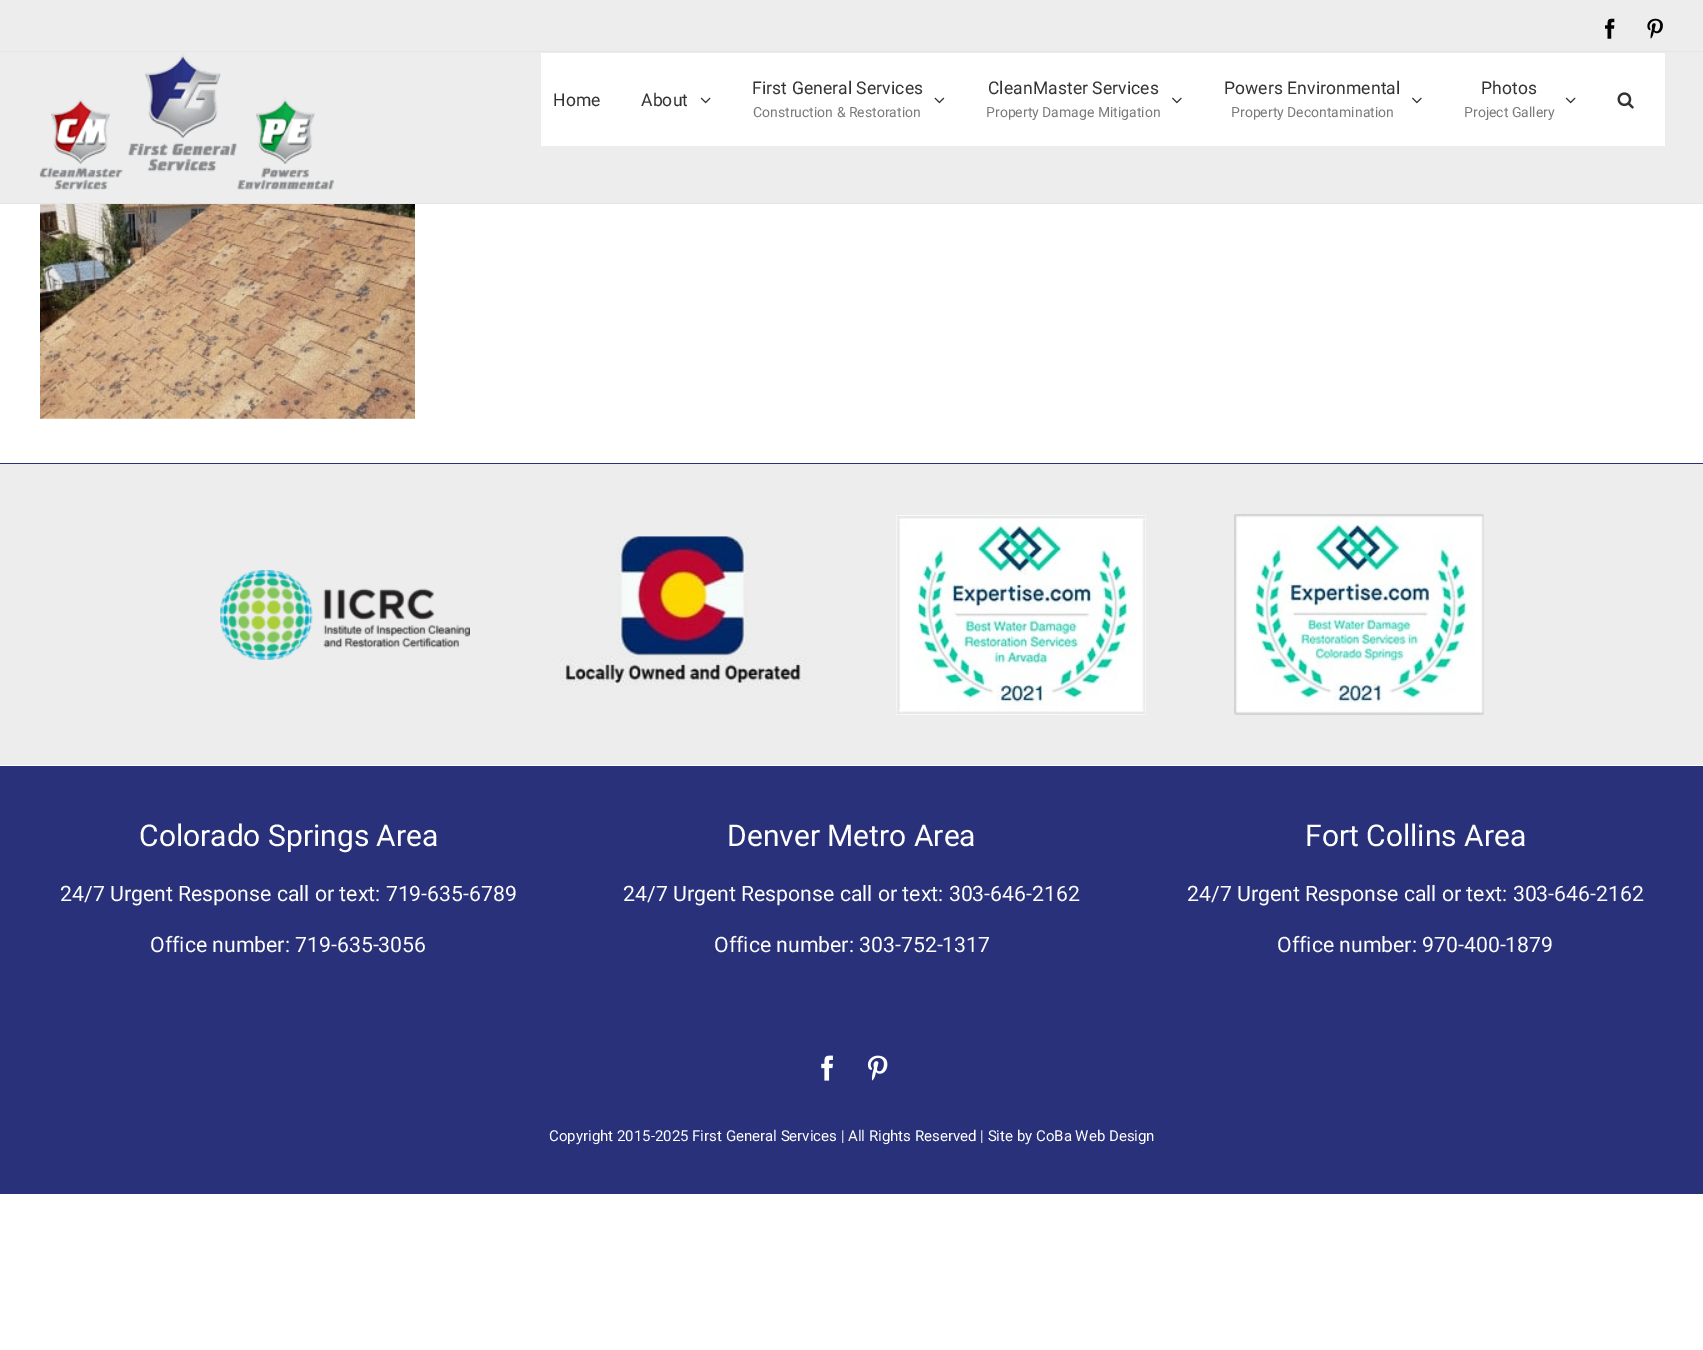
%!PS-Adobe-3.0
%%BoundingBox: 0 0 1703 1350
%%LanguageLevel: 3
%%Pages: 1
%%EndComments
%%BeginProlog
/setink { dup -16 bitshift 255 div exch dup -8 bitshift 255 and 255 div exch 255 and 255 div setrgbcolor } def
/usefont { [ exch dup neg 0 0 3 -1 roll 0 0 ] selectfont } def
/drawimage { 5 dict begin { /h /w /y /x /name } { exch def } forall
  gsave x y translate w h scale
  w h 8 [w 0 0 h 0 0] name (r) file false 3 colorimage grestore end } def
%%EndProlog
%%BeginSetup
<< /PageSize [1703 1350] >> setpagedevice
%%EndSetup
%%Page: 1 1
0 1350 translate 1 -1 scale
4 setmiterlimit
16#FFFFFF setink
0 0 1703 1350 rectfill
16#EDEDED setink
0 0 1703 203 rectfill
16#E5E5E5 setink
0 51 1703 1 rectfill
(img1.raw) 1605 18 10 21 drawimage
(img2.raw) 1647 18 16 21 drawimage
0 203 1703 1 rectfill
(img3.raw) 39 53 295 137 drawimage
16#FFFFFF setink
541 53 1124 93 rectfill
/Roboto-Regular 17.5 usefont
16#333333 setink
553 106 moveto 0.1 0 (Home) ashow
641 106 moveto 0.1 0 (About) ashow
(img4.raw) 700 97 11 7 drawimage
752 94 moveto 0.1 0 (First General Services) ashow
/Roboto-Regular 14 usefont
16#7A7A7A setink
753 117 moveto (Construction & Restoration) show
(img5.raw) 934 97 11 7 drawimage
/Roboto-Regular 17.5 usefont
16#333333 setink
988 94 moveto 0.1 0 (CleanMaster Services) ashow
/Roboto-Regular 14 usefont
16#7A7A7A setink
986 117 moveto (Property Damage Mitigation) show
(img6.raw) 1172 97 10 7 drawimage
/Roboto-Regular 17.5 usefont
16#333333 setink
1224 94 moveto 0.1 0 (Powers Environmental) ashow
/Roboto-Regular 14 usefont
16#7A7A7A setink
1231 117 moveto (Property Decontamination) show
(img6.raw) 1412 97 10 7 drawimage
/Roboto-Regular 17.5 usefont
16#333333 setink
1481 94 moveto 0.1 0 (Photos) ashow
/Roboto-Regular 14 usefont
16#7A7A7A setink
1464 117 moveto (Project Gallery) show
(img4.raw) 1565 97 11 7 drawimage
(img7.raw) 1617 92 17 17 drawimage
(img8.raw) 40 204 375 215 drawimage
16#EDEDED setink
0 464 1703 301 rectfill
16#2A317B setink
0 463 1703 1 rectfill
(img9.raw) 220 570 250 90 drawimage
(img10.raw) 559 536 248 150 drawimage
(img11.raw) 896 515 250 200 drawimage
(img12.raw) 1234 514 250 201 drawimage
0 766 1703 428 rectfill
/Roboto-Regular 30 usefont
16#FFFFFF setink
139 846 moveto (Colorado Springs Area) show
/Roboto-Regular 21.25 usefont
60 901 moveto (24/7 Urgent Response call or text: 719-635-6789) show
150 952 moveto (Office number: 719-635-3056) show
/Roboto-Regular 30 usefont
727 846 moveto (Denver Metro Area) show
/Roboto-Regular 21.25 usefont
623 901 moveto (24/7 Urgent Response call or text: 303-646-2162) show
714 952 moveto (Office number: 303-752-1317) show
/Roboto-Regular 30 usefont
1305 846 moveto (Fort Collins Area) show
/Roboto-Regular 21.25 usefont
1187 901 moveto (24/7 Urgent Response call or text: 303-646-2162) show
1277 952 moveto (Office number: 970-400-1879) show
(img13.raw) 821 1055 12 26 drawimage
(img14.raw) 867 1055 21 26 drawimage
/Roboto-Regular 15 usefont
549 1141 moveto (Copyright 2015-2025 First General Services | All Rights Reserved | Site by CoBa Web Design) show
showpage
%%EOF
